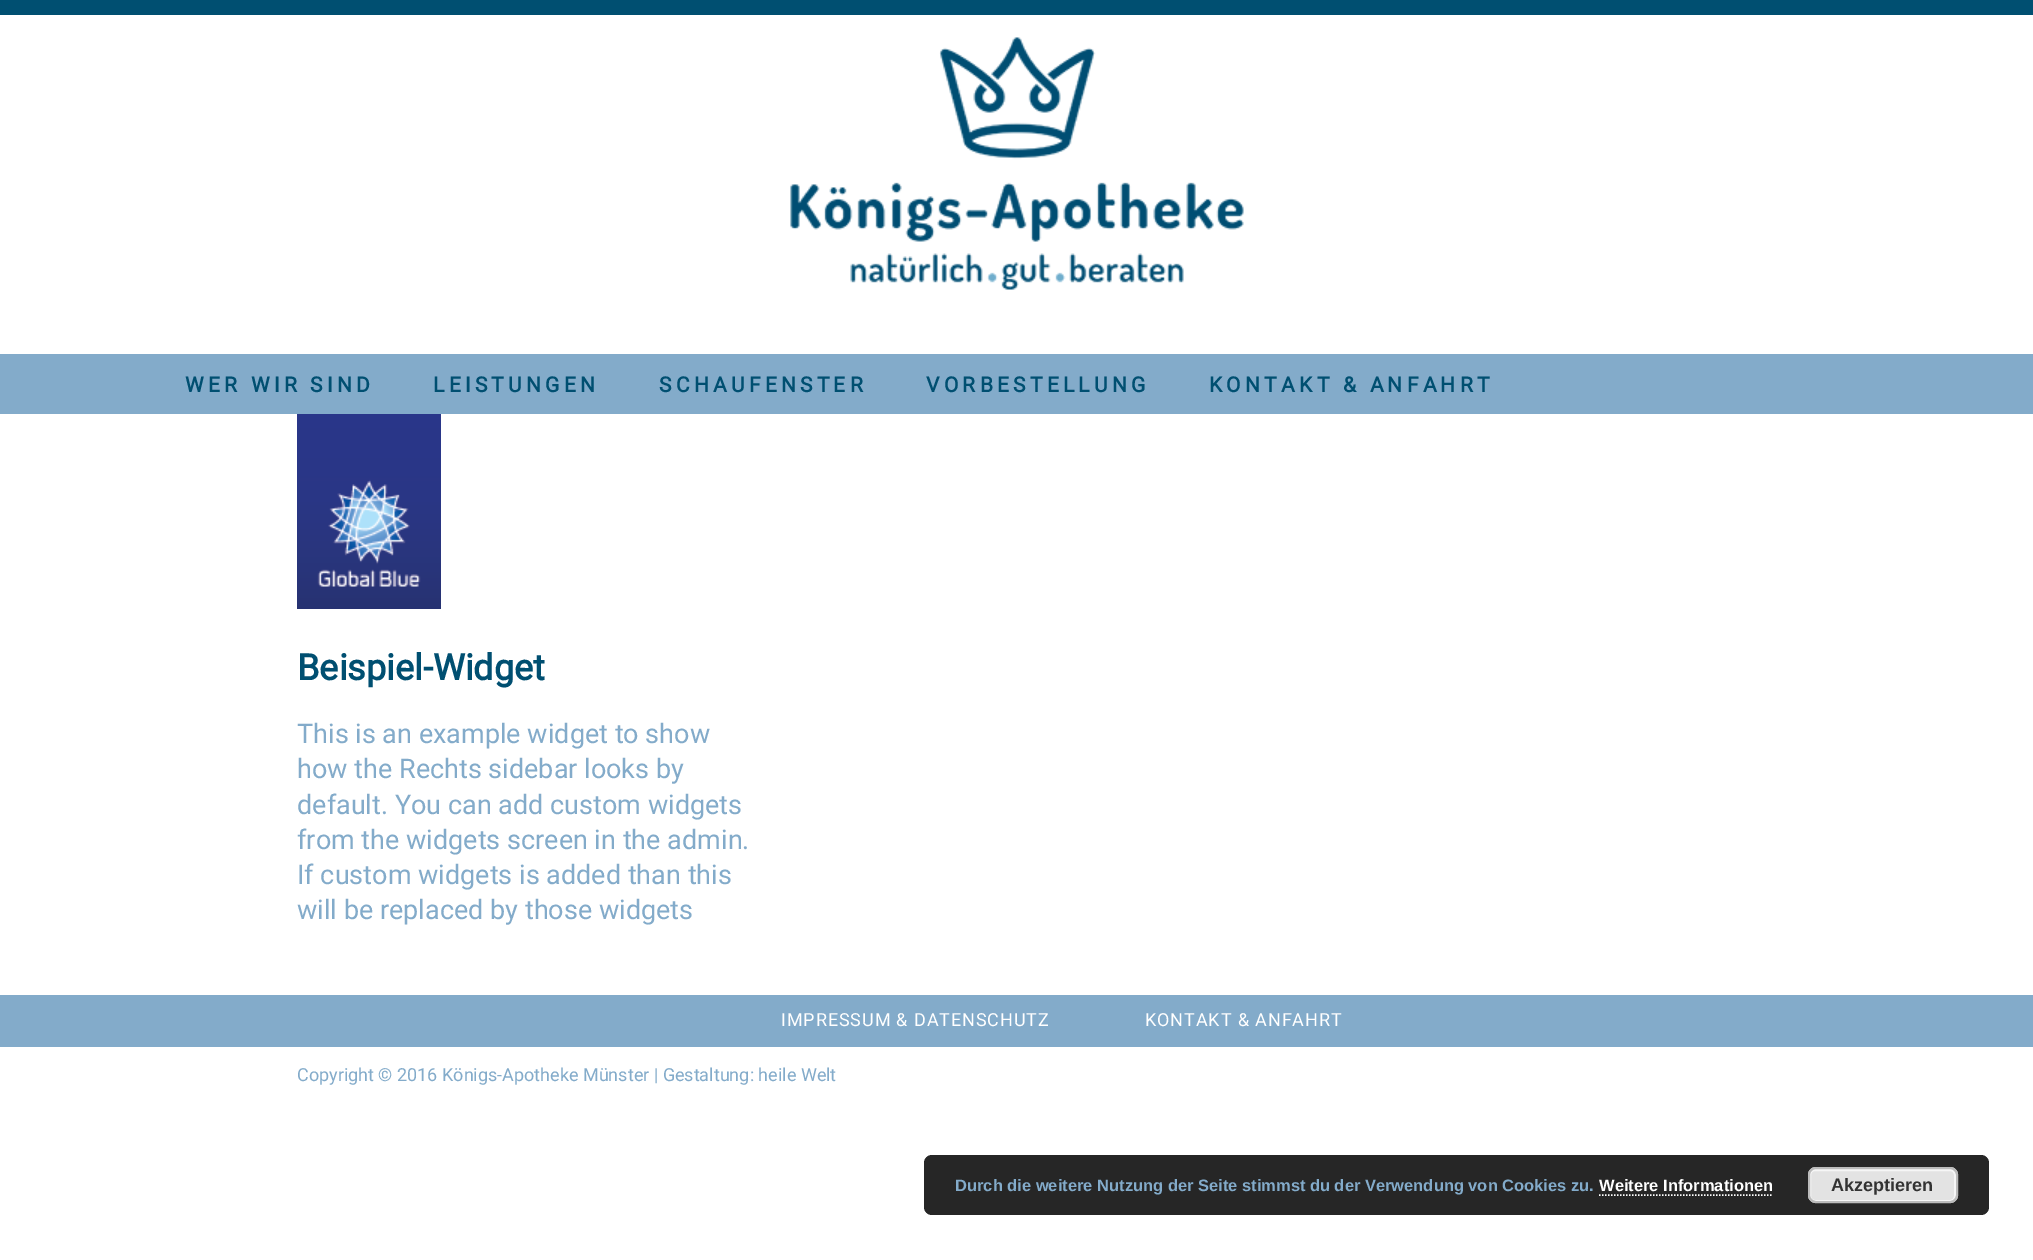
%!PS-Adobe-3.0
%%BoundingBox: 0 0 2033 1260
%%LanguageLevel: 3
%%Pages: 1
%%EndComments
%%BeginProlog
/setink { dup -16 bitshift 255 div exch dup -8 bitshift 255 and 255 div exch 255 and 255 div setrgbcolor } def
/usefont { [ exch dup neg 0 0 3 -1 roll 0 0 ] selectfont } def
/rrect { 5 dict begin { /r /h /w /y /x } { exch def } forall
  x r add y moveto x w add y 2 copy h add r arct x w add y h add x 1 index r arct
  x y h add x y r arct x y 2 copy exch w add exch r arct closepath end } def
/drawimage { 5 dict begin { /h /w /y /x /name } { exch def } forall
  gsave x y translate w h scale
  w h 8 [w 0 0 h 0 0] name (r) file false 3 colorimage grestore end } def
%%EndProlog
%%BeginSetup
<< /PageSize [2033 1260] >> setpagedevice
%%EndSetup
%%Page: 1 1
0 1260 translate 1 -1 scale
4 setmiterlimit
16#FFFFFF setink
0 0 2033 1260 rectfill
16#004F71 setink
0 0 2033 15 rectfill
(img1.raw) 790 37 454 253 drawimage
16#83ABCA setink
0 354 2033 60 rectfill
/Roboto-Bold 21 usefont
16#004F71 setink
185 392 moveto 4.25 0 (WER WIR SIND) ashow
433 392 moveto 4.25 0 (LEISTUNGEN) ashow
659 392 moveto 4.25 0 (SCHAUFENSTER) ashow
926 392 moveto 4.25 0 (VORBESTELLUNG) ashow
1209 392 moveto 4.25 0 (KONTAKT & ANFAHRT) ashow
(img2.raw) 297 414 144 195 drawimage
/Roboto-Bold 36 usefont
297 680 moveto (Beispiel-Widget) show
/Roboto-Regular 27 usefont
16#83ABCA setink
[
    [(This is an example widget to show) 297 743]
    [(how the Rechts sidebar looks by) 297 778]
    [(default. You can add custom widgets) 297 814]
    [(from the widgets screen in the admin.) 297 849]
    [(If custom widgets is added than this) 297 884]
    [(will be replaced by those widgets) 297 919]
] { aload pop moveto show } forall
0 995 2033 52 rectfill
/Roboto-Regular 18 usefont
16#FFFFFF setink
781 1026 moveto 0.9 0 (IMPRESSUM & DATENSCHUTZ) ashow
1145 1026 moveto 0.9 0 (KONTAKT & ANFAHRT) ashow
16#83ABCA setink
297 1081 moveto (Copyright © 2016 Königs-Apotheke Münster | Gestaltung: heile Welt) show
16#262626 setink
924 1155 1065 60 8 rrect fill
/LiberationSans-Bold 16.5 usefont
16#83ABCA setink
955 1191 moveto (Durch die weitere Nutzung der Seite stimmst du der Verwendung von Cookies zu.) show
16#FFFFFF setink
1599 1191 moveto (Weitere Informationen) show
1.5 setlinewidth
[1.5 1.5] 0 setdash
1599 1195 moveto 1773 1195 lineto stroke
16#E3E3E3 setink
1808 1167 150 36 8 rrect fill
16#F6F6F6 setink
2 setlinewidth
[] 0 setdash
1810 1170 145 31 5 rrect stroke
16#BBBBBB setink
1809 1168 148 34 7 rrect stroke
/LiberationSans-Bold 18 usefont
16#333333 setink
1831 1191 moveto (Akzeptieren) show
showpage
%%EOF
